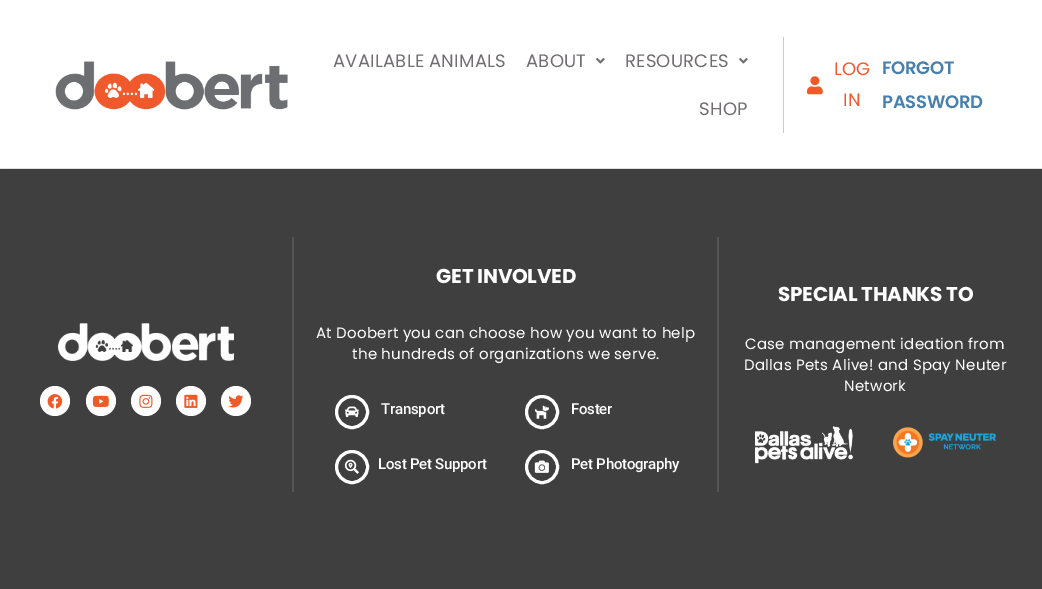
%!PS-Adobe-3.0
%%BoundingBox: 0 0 1042 589
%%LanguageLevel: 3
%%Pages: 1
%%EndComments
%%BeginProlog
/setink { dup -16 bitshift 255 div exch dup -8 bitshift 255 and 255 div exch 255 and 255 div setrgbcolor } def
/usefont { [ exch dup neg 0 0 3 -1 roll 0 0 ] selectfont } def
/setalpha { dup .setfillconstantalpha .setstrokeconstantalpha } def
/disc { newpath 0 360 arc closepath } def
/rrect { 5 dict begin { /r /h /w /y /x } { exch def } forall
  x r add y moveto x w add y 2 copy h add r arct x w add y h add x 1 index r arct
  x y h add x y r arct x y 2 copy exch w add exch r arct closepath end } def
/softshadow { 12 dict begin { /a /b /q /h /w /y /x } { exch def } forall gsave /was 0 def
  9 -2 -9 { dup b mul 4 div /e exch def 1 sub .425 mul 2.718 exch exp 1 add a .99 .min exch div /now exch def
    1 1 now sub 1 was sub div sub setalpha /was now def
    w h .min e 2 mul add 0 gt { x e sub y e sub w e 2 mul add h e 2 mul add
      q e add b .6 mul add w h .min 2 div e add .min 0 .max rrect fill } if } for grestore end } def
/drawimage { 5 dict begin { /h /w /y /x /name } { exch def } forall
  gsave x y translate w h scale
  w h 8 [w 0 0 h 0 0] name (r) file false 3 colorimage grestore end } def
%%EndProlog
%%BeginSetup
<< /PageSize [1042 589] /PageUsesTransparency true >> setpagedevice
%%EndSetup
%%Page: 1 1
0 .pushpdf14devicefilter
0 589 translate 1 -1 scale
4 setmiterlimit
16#F2F3F5 setink
0 0 1042 589 rectfill
16#3F3F3F setink
0 169 1042 420 rectfill
16#000000 setink
0 2 1042 168 0 0.5 0.07 softshadow
16#FFFFFF setink
0 0 1042 168 rectfill
(img1.raw) 55 61 233 49 drawimage
16#CCCCCC setink
783 37 1 96 rectfill
/Poppins-Regular 18 usefont
16#716D71 setink
333 67 moveto 0.25 0 (AVAILABLE ANIMALS) ashow
526 67 moveto 0.25 0 (ABOUT) ashow
(img2.raw) 596 58 9 6 drawimage
625 67 moveto 0.25 0 (RESOURCES) ashow
(img2.raw) 739 58 9 6 drawimage
699 115 moveto 0.25 0 (SHOP) ashow
(img3.raw) 807 76 16 19 drawimage
16#F05A28 setink
834 75 moveto 0.25 0 (LOG) ashow
843 106 moveto 0.25 0 (IN) ashow
/Poppins-SemiBold 18 usefont
16#4580AF setink
882 74 moveto -0.25 0 (FORGOT) ashow
882 108 moveto -0.25 0 (PASSWORD) ashow
(img4.raw) 58 323 176 38 drawimage
16#FFFFFF setink
55 401 15 disc fill
(img5.raw) 47 394 16 15 drawimage
101 401 15 disc fill
(img6.raw) 92 395 17 12 drawimage
146 401 15 disc fill
(img7.raw) 139 394 14 14 drawimage
191 401 15 disc fill
(img8.raw) 184 394 14 14 drawimage
236 401 15 disc fill
(img9.raw) 228 395 16 13 drawimage
16#555555 setink
717 237 2 255 rectfill
292 237 2 255 rectfill
/Poppins-Bold 20 usefont
16#FFFFFF setink
436 283 moveto -0.25 0 (GET INVOLVED) ashow
/Poppins-Regular 15 usefont
316 338 moveto 0.25 0 (At Doobert you can choose how you want to help) ashow
352 359 moveto 0.25 0 (the hundreds of organizations we serve.) ashow
3 setlinewidth
352 412 15.5 disc stroke
(img10.raw) 344 406 15 11 drawimage
/Roboto-Medium 15 usefont
381 414 moveto -0.25 0 (Transport) ashow
542 412 15.5 disc stroke
(img11.raw) 534 405 15 14 drawimage
571 414 moveto -0.25 0 (Foster) ashow
352 467 15.5 disc stroke
(img12.raw) 344 459 15 15 drawimage
378 469 moveto -0.25 0 (Lost Pet Support) ashow
542 467 15.5 disc stroke
(img13.raw) 534 460 15 13 drawimage
571 469 moveto -0.25 0 (Pet Photography) ashow
/Poppins-Bold 20 usefont
778 301 moveto -0.25 0 (SPECIAL THANKS TO) ashow
/Poppins-Regular 15 usefont
745 349 moveto 0.25 0 (Case management ideation from) ashow
744 370 moveto 0.25 0 (Dallas Pets Alive! and Spay Neuter) ashow
844 391 moveto 0.25 0 (Network) ashow
(img14.raw) 755 426 98 38 drawimage
(img15.raw) 893 427 103 31 drawimage
.poppdf14devicefilter showpage
%%EOF
